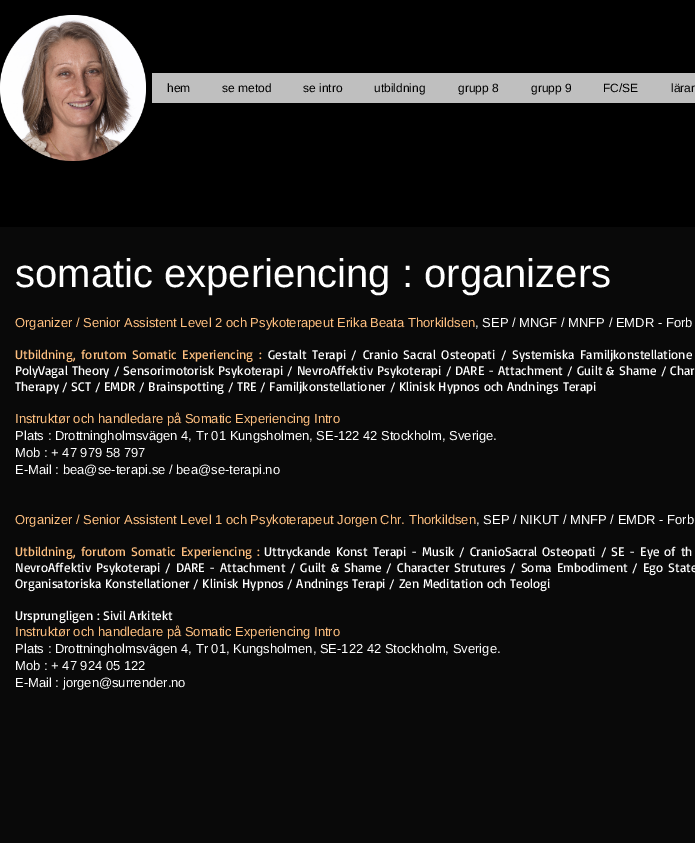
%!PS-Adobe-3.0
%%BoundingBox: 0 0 695 843
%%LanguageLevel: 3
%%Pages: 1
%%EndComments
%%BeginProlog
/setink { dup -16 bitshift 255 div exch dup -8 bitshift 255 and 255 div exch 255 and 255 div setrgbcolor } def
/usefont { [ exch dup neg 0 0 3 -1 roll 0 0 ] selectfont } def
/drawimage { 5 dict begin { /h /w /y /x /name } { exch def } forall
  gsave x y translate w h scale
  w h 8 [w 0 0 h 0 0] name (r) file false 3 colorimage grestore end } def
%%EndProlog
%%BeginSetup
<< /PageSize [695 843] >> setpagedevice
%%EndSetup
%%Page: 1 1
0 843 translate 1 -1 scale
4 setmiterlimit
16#000000 setink
0 0 695 843 rectfill
(img1.raw) 0 15 146 146 drawimage
16#BFBFBF setink
152 73 543 30 rectfill
/LiberationSans-Regular 12 usefont
16#000000 setink
[
    [(hem) 167 92]
    [(se metod) 222 92]
    [(se intro) 303 92]
    [(utbildning) 374 92]
    [(grupp 8) 458 92]
    [(grupp 9) 531 92]
    [(FC/SE) 603 92]
    [(lärar) 671 92]
] { aload pop moveto show } forall
16#090909 setink
0 227 695 616 rectfill
/LiberationSans-Regular 40 usefont
16#FFFFFF setink
15 287 moveto (somatic experiencing : organizers) show
/LiberationSans-Regular 13 usefont
16#FFC080 setink
15 327 moveto (Organizer / Senior Assistent Level 2 och Psykoterapeut Erika Beata Thorkildsen) show
16#FFFFFF setink
475 327 moveto (, SEP / MNGF / MNFP / EMDR - Forb) show
/Basic-Regular 13 usefont
16#FFC080 setink
15 359 moveto 2 0 32 (Utbildning, forutom Somatic Experiencing :) widthshow
16#FFFFFF setink
268 359 moveto 2 0 32 (Gestalt Terapi / Cranio Sacral Osteopati / Systemiska Familjkonstellatione) widthshow
15 375 moveto 0.5 0 32 (PolyVagal Theory / Sensorimotorisk Psykoterapi / NevroAffektiv Psykoterapi / DARE - Attachment / Guilt & Shame / Char) widthshow
15 391 moveto (Therapy / SCT / EMDR / Brainspotting / TRE / Familjkonstellationer / Klinisk Hypnos och Andnings Terapi) show
/LiberationSans-Regular 13 usefont
16#FFC080 setink
15 423 moveto (Instruktør och handledare på Somatic Experiencing Intro) show
16#FFFFFF setink
[
    [(Plats : Drottningholmsvägen 4, Tr 01 Kungsholmen, SE-122 42 Stockholm, Sverige.) 15 440]
    [(Mob : + 47 979 58 797) 15 457]
    [(E-Mail : bea@se-terapi.se / bea@se-terapi.no) 15 474]
] { aload pop moveto show } forall
16#FFC080 setink
15 524 moveto (Organizer / Senior Assistent Level 1 och Psykoterapeut Jorgen Chr. Thorkildsen) show
16#FFFFFF setink
476 524 moveto (, SEP / NIKUT / MNFP / EMDR - Forb) show
/Basic-Regular 13 usefont
16#FFC080 setink
15 556 moveto 1.5 0 32 (Utbildning, forutom Somatic Experiencing :) widthshow
16#FFFFFF setink
264 556 moveto 1.25 0 32 (Uttryckande Konst Terapi - Musik / CranioSacral Osteopati / SE - Eye of th) widthshow
15 572 moveto 1.25 0 32 (NevroAffektiv Psykoterapi / DARE - Attachment / Guilt & Shame / Character Strutures / Soma Embodiment / Ego State) widthshow
15 588 moveto (Organisatoriska Konstellationer / Klinisk Hypnos / Andnings Terapi / Zen Meditation och Teologi) show
15 620 moveto (Ursprungligen : Sivil Arkitekt) show
/LiberationSans-Regular 13 usefont
16#FFC080 setink
15 636 moveto (Instruktør och handledare på Somatic Experiencing Intro) show
16#FFFFFF setink
[
    [(Plats : Drottningholmsvägen 4, Tr 01, Kungsholmen, SE-122 42 Stockholm, Sverige.) 15 653]
    [(Mob : + 47 924 05 122) 15 670]
    [(E-Mail : jorgen@surrender.no) 15 687]
] { aload pop moveto show } forall
showpage
%%EOF
